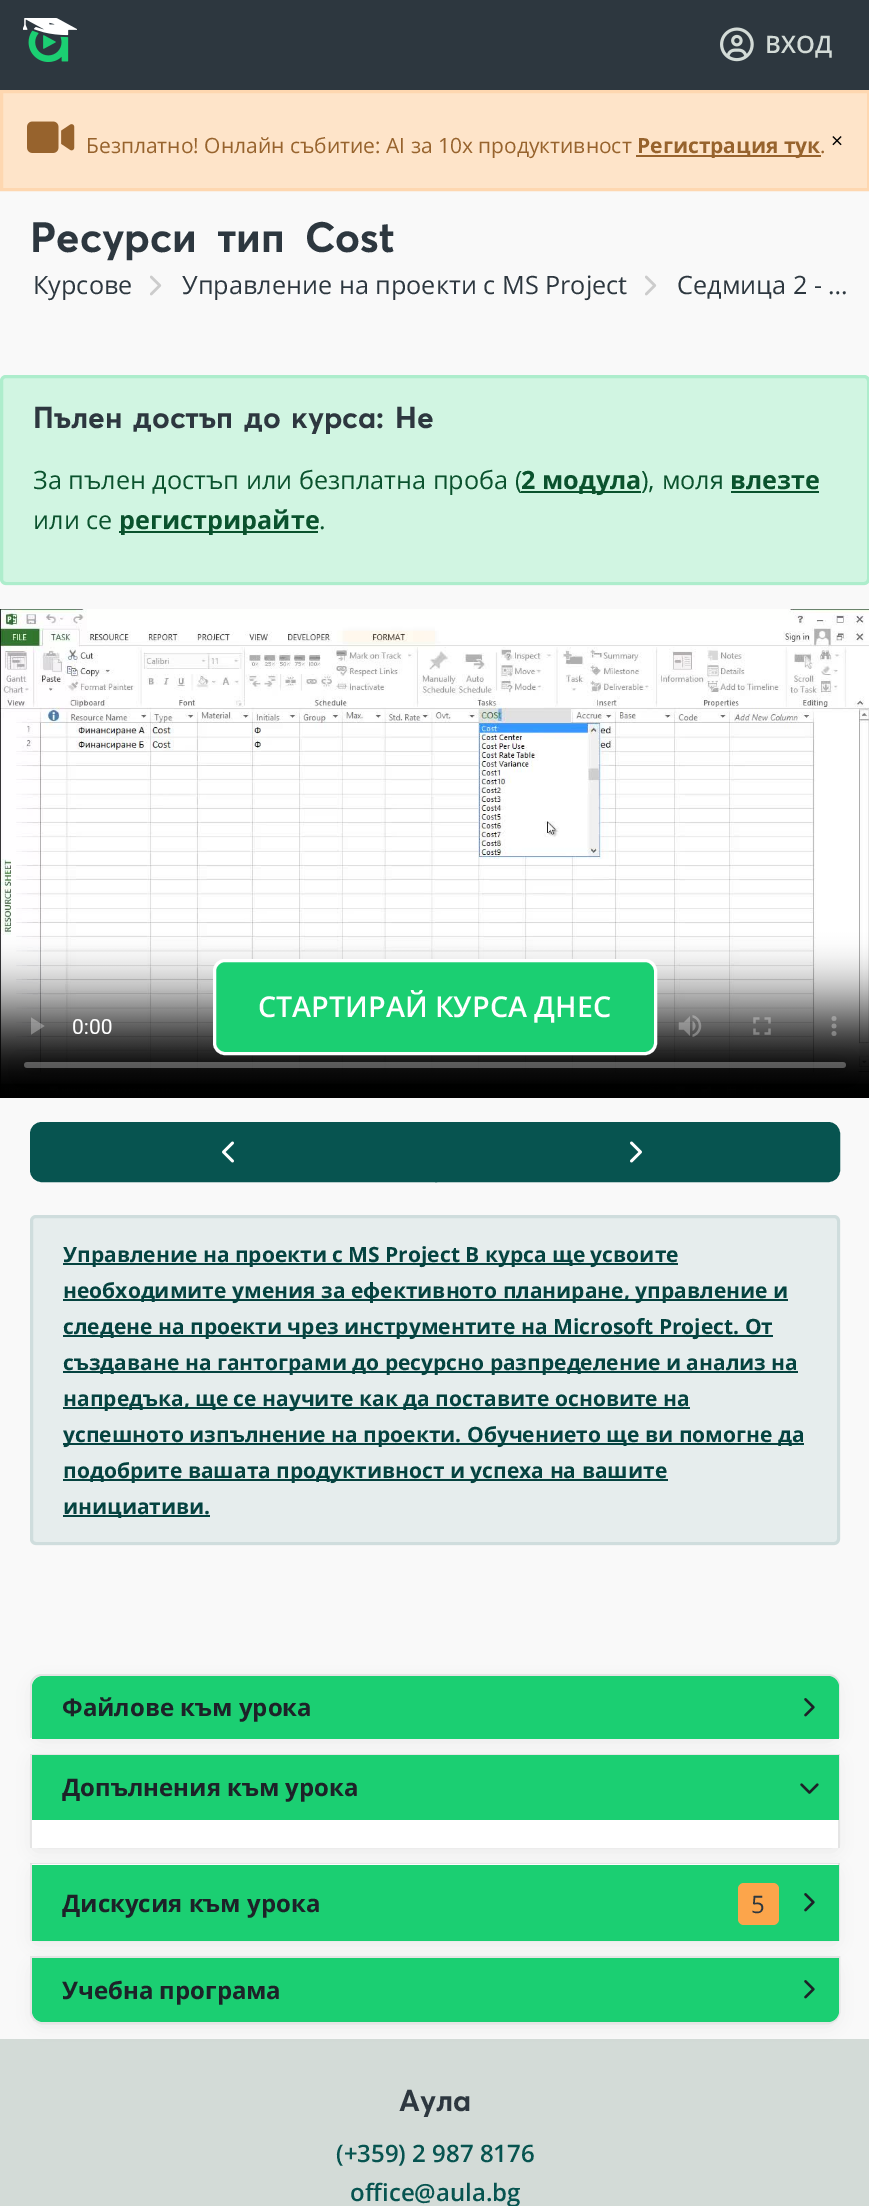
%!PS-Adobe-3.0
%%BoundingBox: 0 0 869 2206
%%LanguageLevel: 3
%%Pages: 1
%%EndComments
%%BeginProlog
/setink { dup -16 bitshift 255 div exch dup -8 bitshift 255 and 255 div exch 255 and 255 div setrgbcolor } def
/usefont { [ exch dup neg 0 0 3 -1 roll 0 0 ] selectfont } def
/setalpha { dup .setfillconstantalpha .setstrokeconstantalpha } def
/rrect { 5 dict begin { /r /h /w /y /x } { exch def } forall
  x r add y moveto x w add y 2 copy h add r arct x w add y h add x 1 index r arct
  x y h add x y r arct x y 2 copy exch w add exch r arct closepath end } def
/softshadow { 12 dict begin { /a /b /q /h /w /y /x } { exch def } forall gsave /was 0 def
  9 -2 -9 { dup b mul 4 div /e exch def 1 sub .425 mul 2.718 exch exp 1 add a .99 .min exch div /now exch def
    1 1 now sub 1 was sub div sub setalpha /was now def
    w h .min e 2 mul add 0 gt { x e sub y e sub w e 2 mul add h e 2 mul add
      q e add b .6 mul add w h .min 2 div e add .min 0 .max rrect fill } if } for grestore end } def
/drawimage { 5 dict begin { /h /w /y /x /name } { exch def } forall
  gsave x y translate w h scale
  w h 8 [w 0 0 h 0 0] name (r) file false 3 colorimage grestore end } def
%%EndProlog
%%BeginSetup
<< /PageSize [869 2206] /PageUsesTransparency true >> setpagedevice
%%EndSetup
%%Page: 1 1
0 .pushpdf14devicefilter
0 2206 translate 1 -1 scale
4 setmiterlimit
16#F9F9F9 setink
0 0 869 2206 rectfill
16#2D373F setink
0 0 869 90 rectfill
(img1.raw) 23 18 54 44 drawimage
(img2.raw) 720 27 34 35 drawimage
/OpenSans-SemiBold 24 usefont
16#D3DBD7 setink
765 53 moveto (ВХОД) show
16#FEE4C9 setink
1.5 91.5 moveto 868.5 91.5 lineto 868.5 189.5 lineto 1.5 189.5 lineto closepath gsave fill grestore
16#FED7B0 setink
3 setlinewidth
stroke
(img3.raw) 27 121 48 32 drawimage
/OpenSans-Regular 21 usefont
16#97632D setink
86 153 moveto (Безплатно! Онлайн събитие: AI за 10x продуктивност) show
636 155 185 2 rectfill
/OpenSans-Bold 21 usefont
637 153 moveto (Регистрация тук) show
/OpenSans-Regular 21 usefont
820 153 moveto (.) show
16#000000 setink
831 148 moveto (×) show
/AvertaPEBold-Bold 42 usefont
16#2D373F setink
30 252 moveto 9 0 32 (Ресурси тип Cost) widthshow
/OpenSans-Regular 25.25 usefont
33 294 moveto (Курсове) show
(img4.raw) 150 275 12 21 drawimage
182 294 moveto (Управление на проекти с MS Project) show
(img4.raw) 645 275 12 21 drawimage
677 294 moveto (Седмица 2 - …) show
16#D1F5E2 setink
0 375 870 210 6 rrect fill
0.2 setalpha
16#1BCF72 setink
1.5 376.5 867 207 4.5 rrect stroke
/AvertaPEBold-Bold 30 usefont
1 setalpha
16#2D373F setink
33 428 moveto 3 0 32 (Пълен достъп до курса: Не) widthshow
/OpenSans-Regular 25.25 usefont
16#0A522D setink
33 489 moveto (За пълен достъп или безплатна проба \() show
521 491 120 2 rectfill
/OpenSans-Bold 25.25 usefont
521 489 moveto (2 модула) show
/OpenSans-Regular 25.25 usefont
641 489 moveto (\), моля) show
/OpenSans-Bold 25.25 usefont
730 489 moveto (влезте) show
731 491 88 2 rectfill
/OpenSans-Regular 25.25 usefont
33 529 moveto (или се) show
119 531 199 2 rectfill
/OpenSans-Bold 25.25 usefont
119 529 moveto (регистрирайте) show
/OpenSans-Regular 25.25 usefont
319 529 moveto (.) show
(img5.raw) 0 609 869 489 drawimage
16#1BCF72 setink
214.5 960.5 441 93 10.5 rrect gsave fill grestore
16#FFFFFF setink
stroke
/OpenSans-SemiBold 28.75 usefont
258 1017 moveto (СТАРТИРАЙ КУРСА ДНЕС) show
16#075450 setink
42 1123.5 moveto 435.5 1123.5 lineto 435.5 1180.5 lineto 42 1180.5 lineto 36 1180.5 31.5 1176 31.5 1170 curveto 31.5 1134 lineto 31.5 1128 36 1123.5 42 1123.5 curveto closepath gsave fill grestore
stroke
(img6.raw) 222 1141 12 22 drawimage
436.5 1123.5 moveto 828 1123.5 lineto 834 1123.5 838.5 1128 838.5 1134 curveto 838.5 1170 lineto 838.5 1176 834 1180.5 828 1180.5 curveto 436.5 1180.5 lineto closepath gsave fill grestore
stroke
(img7.raw) 630 1141 12 22 drawimage
16#E6EDED setink
30 1215 810 330 6 rrect fill
0.1 setalpha
16#075450 setink
31.5 1216.5 807 327 4.5 rrect stroke
1 setalpha
16#054340 setink
63 1263 615 2 rectfill
/OpenSans-Bold 21 usefont
63 1262 moveto (Управление на проекти с MS Project В курса ще усвоите) show
63 1299 725 2 rectfill
63 1298 moveto (необходимите умения за ефективното планиране, управление и) show
63 1335 710 2 rectfill
63 1334 moveto (следене на проекти чрез инструментите на Microsoft Project. От) show
63 1371 735 2 rectfill
63 1370 moveto (създаване на гантограми до ресурсно разпределение и анализ на) show
63 1407 627 2 rectfill
63 1406 moveto (напредъка, ще се научите как да поставите основите на) show
63 1443 741 2 rectfill
63 1442 moveto (успешното изпълнение на проекти. Обучението ще ви помогне да) show
63 1479 605 2 rectfill
63 1478 moveto (подобрите вашата продуктивност и успеха на вашите) show
63 1515 147 2 rectfill
63 1514 moveto (инициативи.) show
16#000000 setink
36 1685 798 52 6 9 0.1 softshadow
16#FFFFFF setink
42 1674 moveto 828 1674 lineto 834.5 1674 840 1679.5 840 1686 curveto 840 1739 lineto 30 1739 lineto 30 1686 lineto 30 1679.5 35.5 1674 42 1674 curveto closepath fill
0.1 setalpha
16#000000 setink
42 1674 moveto 828 1674 lineto 835 1674 840 1679 840 1686 curveto 840 1738 lineto 30 1738 lineto 30 1686 lineto 30 1679 35 1674 42 1674 curveto closepath 42 1676 moveto 828 1676 lineto 834 1676 838 1680 838 1686 curveto 838 1738 lineto 32 1738 lineto 32 1686 lineto 32 1680 36 1676 42 1676 curveto closepath eofill
1 setalpha
16#1BCF72 setink
43 1676 moveto 828 1676 lineto 834 1676 839 1681 839 1687 curveto 839 1739 lineto 32 1739 lineto 32 1687 lineto 32 1681 37 1676 43 1676 curveto closepath fill
/OpenSans-Bold 24 usefont
16#1D2228 setink
62 1716 moveto (Файлове към урока) show
(img8.raw) 804 1698 11 19 drawimage
16#000000 setink
36 1764 798 83 0 9 0.1 softshadow
16#FFFFFF setink
30 1754 810 94 rectfill
16#E6E6E6 setink
30 1754 moveto 840 1754 lineto 838 1755 lineto 32 1755 lineto closepath fill
0.1 setalpha
16#000000 setink
840 1754 moveto 840 1848 lineto 838 1848 lineto 838 1755 lineto closepath fill
30 1848 moveto 30 1754 lineto 32 1755 lineto 32 1848 lineto closepath fill
1 setalpha
16#1BCF72 setink
32 1755 807 65 rectfill
16#1D2228 setink
62 1796 moveto (Допълнения към урока) show
(img9.raw) 800 1783 19 11 drawimage
16#000000 setink
36 1874 798 66 0 9 0.1 softshadow
16#FFFFFF setink
30 1863 810 78 rectfill
16#E6E6E6 setink
30 1863 moveto 840 1863 lineto 838 1864 lineto 32 1864 lineto closepath fill
0.1 setalpha
16#000000 setink
840 1863 moveto 840 1941 lineto 838 1941 lineto 838 1864 lineto closepath fill
30 1941 moveto 30 1863 lineto 32 1864 lineto 32 1941 lineto closepath fill
1 setalpha
16#1BCF72 setink
32 1865 807 76 rectfill
16#1D2228 setink
62 1912 moveto (Дискусия към урока) show
16#FCA54B setink
738 1883 41 42 6 rrect fill
/OpenSans-Regular 24 usefont
16#2D373F setink
751 1913 moveto (5) show
(img8.raw) 804 1893 11 19 drawimage
16#D3DBD7 setink
0 2039 869 167 rectfill
16#000000 setink
36 1967 798 55 6 9 0.1 softshadow
16#FFFFFF setink
30 1956 moveto 840 1956 lineto 840 2012 lineto 840 2018.5 834.5 2024 828 2024 curveto 42 2024 lineto 35.5 2024 30 2018.5 30 2012 curveto closepath fill
0.1 setalpha
16#000000 setink
2 setlinewidth
31 1957 moveto 839 1957 lineto 839 2012 lineto 839 2018 834 2023 828 2023 curveto 42 2023 lineto 36 2023 31 2018 31 2012 curveto closepath stroke
1 setalpha
16#1BCF72 setink
32 1958 moveto 839 1958 lineto 839 2011 lineto 839 2017 834 2022 828 2022 curveto 43 2022 lineto 37 2022 32 2017 32 2011 curveto closepath fill
/OpenSans-Bold 24 usefont
16#1D2228 setink
62 1999 moveto (Учебна програма) show
(img8.raw) 804 1980 11 19 drawimage
/AvertaPEBold-Bold 30 usefont
16#2D373F setink
399 2111 moveto (Аула) show
/OpenSans-SemiBold 24 usefont
16#075450 setink
336 2162 moveto (\(+359\) 2 987 8176) show
350 2201 moveto (office@aula.bg) show
.poppdf14devicefilter showpage
%%EOF
